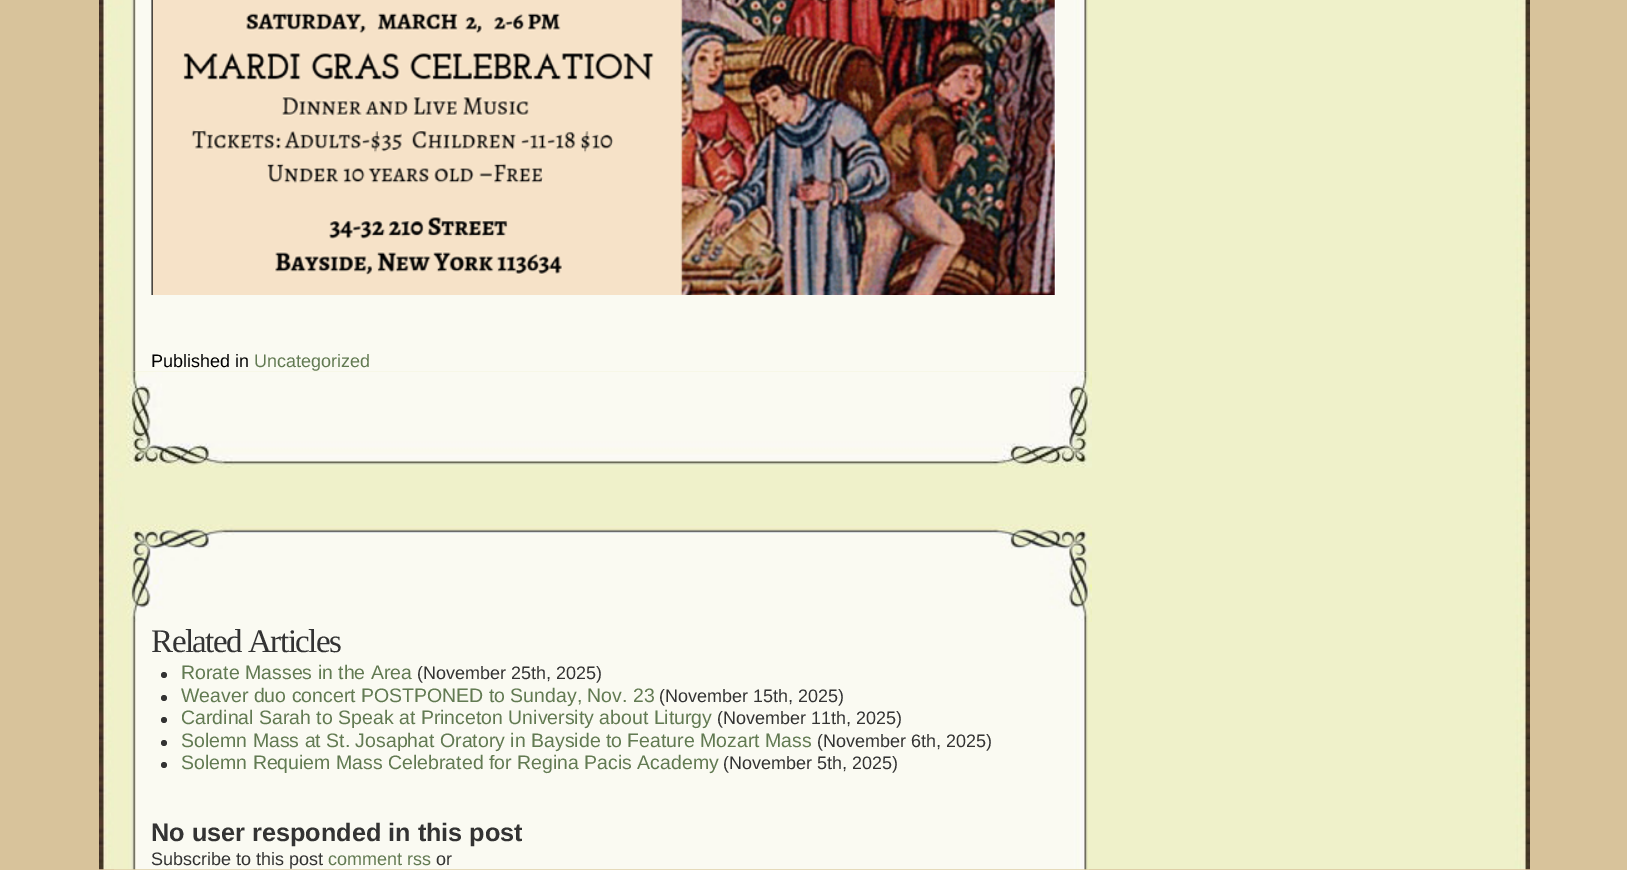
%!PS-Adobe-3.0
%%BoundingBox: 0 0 1627 870
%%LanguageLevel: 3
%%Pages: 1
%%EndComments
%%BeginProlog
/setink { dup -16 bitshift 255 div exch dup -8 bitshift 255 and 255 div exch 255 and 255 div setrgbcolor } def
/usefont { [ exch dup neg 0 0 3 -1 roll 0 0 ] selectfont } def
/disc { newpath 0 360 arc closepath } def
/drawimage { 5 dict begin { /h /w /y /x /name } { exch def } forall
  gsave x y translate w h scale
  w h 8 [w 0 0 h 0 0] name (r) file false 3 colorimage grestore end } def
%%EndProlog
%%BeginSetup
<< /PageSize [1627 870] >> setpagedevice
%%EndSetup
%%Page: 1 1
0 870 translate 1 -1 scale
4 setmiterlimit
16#D8C39B setink
0 0 1627 870 rectfill
(img1.raw) 99 0 1431 870 drawimage
(img2.raw) 131 0 958 372 drawimage
(img3.raw) 151 0 905 295 drawimage
/LiberationSans-Regular 18 usefont
16#000000 setink
151 367 moveto (Published in) show
16#627A52 setink
254 367 moveto (Uncategorized) show
(img4.raw) 114 371 978 97 drawimage
(img5.raw) 114 524 978 98 drawimage
(img6.raw) 114 622 975 248 drawimage
/LiberationSerif-Regular 33 usefont
16#333333 setink
151 652 moveto -1.5 0 (Related Articles) ashow
164 675 3 disc fill
/LiberationSans-Regular 19.5 usefont
16#627A52 setink
181 679 moveto (Rorate Masses in the Area) show
/LiberationSans-Regular 18 usefont
16#333333 setink
417 679 moveto (\(November 25th, 2025\)) show
164 698 3 disc fill
/LiberationSans-Regular 19.5 usefont
16#627A52 setink
181 702 moveto (Weaver duo concert POSTPONED to Sunday, Nov. 23) show
/LiberationSans-Regular 18 usefont
16#333333 setink
659 702 moveto (\(November 15th, 2025\)) show
164 720 3 disc fill
/LiberationSans-Regular 19.5 usefont
16#627A52 setink
181 724 moveto (Cardinal Sarah to Speak at Princeton University about Liturgy) show
/LiberationSans-Regular 18 usefont
16#333333 setink
717 724 moveto (\(November 11th, 2025\)) show
164 743 3 disc fill
/LiberationSans-Regular 19.5 usefont
16#627A52 setink
181 747 moveto (Solemn Mass at St. Josaphat Oratory in Bayside to Feature Mozart Mass) show
/LiberationSans-Regular 18 usefont
16#333333 setink
817 747 moveto (\(November 6th, 2025\)) show
164 765 3 disc fill
/LiberationSans-Regular 19.5 usefont
16#627A52 setink
181 769 moveto (Solemn Requiem Mass Celebrated for Regina Pacis Academy) show
/LiberationSans-Regular 18 usefont
16#333333 setink
723 769 moveto (\(November 5th, 2025\)) show
/LiberationSans-Bold 25.25 usefont
151 841 moveto (No user responded in this post) show
/LiberationSans-Regular 18 usefont
151 865 moveto (Subscribe to this post) show
16#627A52 setink
328 865 moveto (comment rss) show
16#333333 setink
436 865 moveto (or) show
showpage
%%EOF
